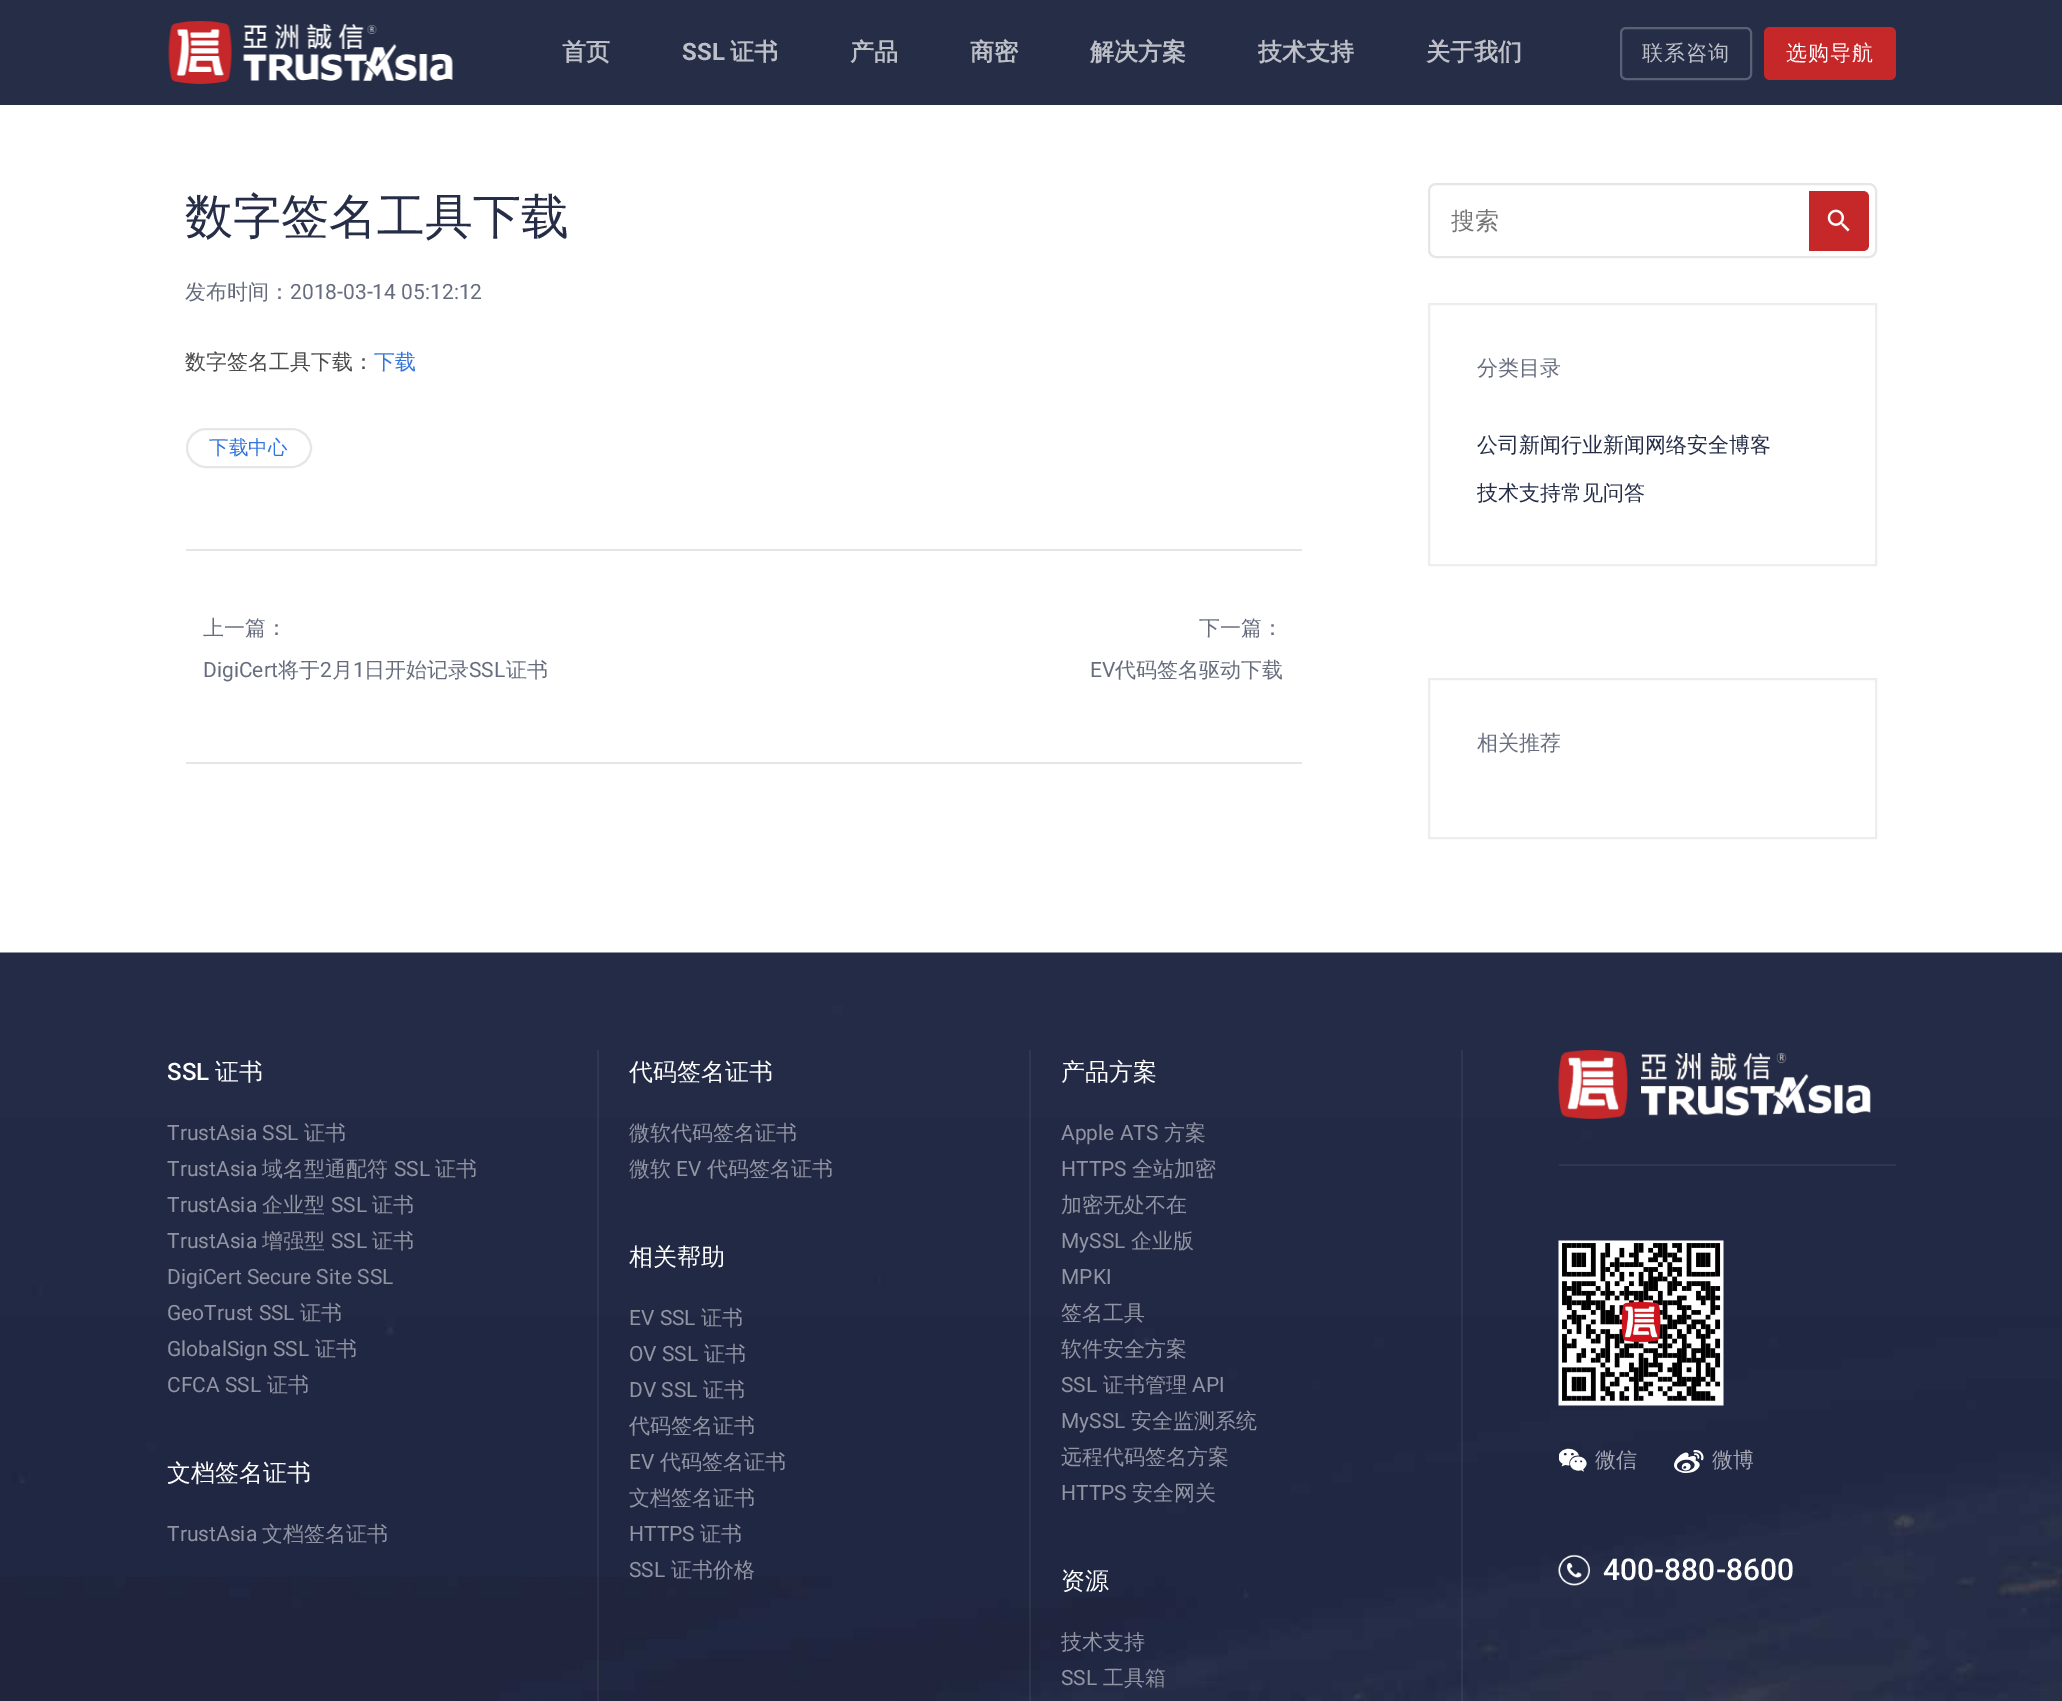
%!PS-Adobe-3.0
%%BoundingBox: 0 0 2062 1701
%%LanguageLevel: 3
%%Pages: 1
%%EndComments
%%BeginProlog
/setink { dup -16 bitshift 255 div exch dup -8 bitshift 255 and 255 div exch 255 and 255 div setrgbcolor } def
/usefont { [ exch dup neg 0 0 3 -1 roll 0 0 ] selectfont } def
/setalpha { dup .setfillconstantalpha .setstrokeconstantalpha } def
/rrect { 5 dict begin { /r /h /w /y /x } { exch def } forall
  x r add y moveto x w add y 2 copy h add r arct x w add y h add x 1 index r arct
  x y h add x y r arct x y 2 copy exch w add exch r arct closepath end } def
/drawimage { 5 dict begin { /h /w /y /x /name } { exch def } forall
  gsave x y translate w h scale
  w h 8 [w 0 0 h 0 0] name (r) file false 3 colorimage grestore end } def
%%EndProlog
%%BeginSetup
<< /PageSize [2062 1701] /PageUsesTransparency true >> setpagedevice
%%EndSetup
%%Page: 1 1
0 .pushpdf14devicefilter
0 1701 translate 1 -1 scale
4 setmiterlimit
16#FFFFFF setink
0 0 2062 1701 rectfill
16#252D47 setink
0 0 2062 105 rectfill
(img1.raw) 168 21 285 63 drawimage
/WenQuanYiZenHei-Bold 24 usefont
16#BEC0C8 setink
562 60 moveto (首页) show
/Roboto-Bold 24 usefont
682 60 moveto (SSL) show
/WenQuanYiZenHei-Bold 24 usefont
[
    [(证书) 730 60]
    [(产品) 850 60]
    [(商密) 970 60]
    [(解决方案) 1090 60]
    [(技术支持) 1258 60]
    [(关于我们) 1426 60]
] { aload pop moveto show } forall
16#5B6074 setink
2 setlinewidth
1621 28 130 51 5 rrect stroke
/WenQuanYiZenHei-Medium 21 usefont
16#BEC0C8 setink
1642 60 moveto 1 0 (联系咨询) ashow
16#C62729 setink
1764 27 132 53 6 rrect fill
16#FFFFFF setink
1786 60 moveto 1 0 (选购导航) ashow
/WenQuanYiZenHei-Medium 48 usefont
16#252D47 setink
185 233 moveto (数字签名工具下载) show
/WenQuanYiZenHei-Medium 21 usefont
16#666C7E setink
185 299 moveto (发布时间：) show
/Roboto-Regular 21 usefont
290 299 moveto (2018-03-14 05:12:12) show
/WenQuanYiZenHei-Medium 21 usefont
16#4A4A4A setink
185 369 moveto (数字签名工具下载：) show
16#3273DC setink
374 369 moveto (下载) show
16#E6E6E6 setink
187 429 124 38 19 rrect stroke
/WenQuanYiZenHei-Medium 19.5 usefont
16#3273DC setink
209 454 moveto (下载中心) show
16#E5E5E5 setink
186 549 1116 2 rectfill
186 762 1116 2 rectfill
/WenQuanYiZenHei-Medium 21 usefont
16#666C7E setink
203 635 moveto (上一篇：) show
/Roboto-Regular 21 usefont
203 677 moveto (DigiCert) show
/WenQuanYiZenHei-Medium 21 usefont
278 677 moveto (将于) show
/Roboto-Regular 21 usefont
320 677 moveto (2) show
/WenQuanYiZenHei-Medium 21 usefont
332 677 moveto (月) show
/Roboto-Regular 21 usefont
353 677 moveto (1) show
/WenQuanYiZenHei-Medium 21 usefont
364 677 moveto (日开始记录) show
/Roboto-Regular 21 usefont
469 677 moveto (SSL) show
/WenQuanYiZenHei-Medium 21 usefont
506 677 moveto (证书) show
1199 635 moveto (下一篇：) show
/Roboto-Regular 21 usefont
1090 677 moveto (EV) show
/WenQuanYiZenHei-Medium 21 usefont
1115 677 moveto (代码签名驱动下载) show
16#E6E6E6 setink
1429 184 447 73 7 rrect stroke
/WenQuanYiZenHei-Medium 24 usefont
16#757575 setink
1451 229 moveto (搜索) show
16#C62729 setink
1809 191 moveto 1863 191 lineto 1866.5 191 1869 193.5 1869 197 curveto 1869 245 lineto 1869 248.5 1866.5 251 1863 251 curveto 1809 251 lineto closepath fill
(img2.raw) 1827 209 23 23 drawimage
16#EDEDED setink
1429 304 447 261 rectstroke
/WenQuanYiZenHei-Medium 21 usefont
16#666C7E setink
1477 375 moveto (分类目录) show
16#252D47 setink
1477 452 moveto (公司新闻行业新闻网络安全博客) show
1477 500 moveto (技术支持常见问答) show
16#EDEDED setink
1429 679 447 159 rectstroke
16#666C7E setink
1477 750 moveto (相关推荐) show
(img3.raw) 0 952 2062 749 drawimage
0.06 setalpha
16#FFFFFF setink
597 1050 2 651 rectfill
/Roboto-Medium 24 usefont
1 setalpha
167 1080 moveto (SSL) show
/WenQuanYiZenHei-Medium 24 usefont
215 1080 moveto (证书) show
/Roboto-Regular 21 usefont
16#9194A2 setink
167 1140 moveto (TrustAsia SSL) show
/WenQuanYiZenHei-Medium 21 usefont
304 1140 moveto (证书) show
/Roboto-Regular 21 usefont
167 1176 moveto (TrustAsia) show
/WenQuanYiZenHei-Medium 21 usefont
262 1176 moveto (域名型通配符) show
/Roboto-Regular 21 usefont
394 1176 moveto (SSL) show
/WenQuanYiZenHei-Medium 21 usefont
435 1176 moveto (证书) show
/Roboto-Regular 21 usefont
167 1212 moveto (TrustAsia) show
/WenQuanYiZenHei-Medium 21 usefont
262 1212 moveto (企业型) show
/Roboto-Regular 21 usefont
331 1212 moveto (SSL) show
/WenQuanYiZenHei-Medium 21 usefont
372 1212 moveto (证书) show
/Roboto-Regular 21 usefont
167 1248 moveto (TrustAsia) show
/WenQuanYiZenHei-Medium 21 usefont
262 1248 moveto (增强型) show
/Roboto-Regular 21 usefont
331 1248 moveto (SSL) show
/WenQuanYiZenHei-Medium 21 usefont
372 1248 moveto (证书) show
/Roboto-Regular 21 usefont
167 1284 moveto (DigiCert Secure Site SSL) show
167 1320 moveto (GeoTrust SSL) show
/WenQuanYiZenHei-Medium 21 usefont
300 1320 moveto (证书) show
/Roboto-Regular 21 usefont
167 1356 moveto (GlobalSign SSL) show
/WenQuanYiZenHei-Medium 21 usefont
315 1356 moveto (证书) show
/Roboto-Regular 21 usefont
167 1392 moveto (CFCA SSL) show
/WenQuanYiZenHei-Medium 21 usefont
267 1392 moveto (证书) show
/WenQuanYiZenHei-Medium 24 usefont
16#FFFFFF setink
167 1481 moveto (文档签名证书) show
/Roboto-Regular 21 usefont
16#9194A2 setink
167 1541 moveto (TrustAsia) show
/WenQuanYiZenHei-Medium 21 usefont
262 1541 moveto (文档签名证书) show
0.06 setalpha
16#FFFFFF setink
1029 1050 2 651 rectfill
/WenQuanYiZenHei-Medium 24 usefont
1 setalpha
629 1080 moveto (代码签名证书) show
/WenQuanYiZenHei-Medium 21 usefont
16#9194A2 setink
629 1140 moveto (微软代码签名证书) show
629 1176 moveto (微软) show
/Roboto-Regular 21 usefont
676 1176 moveto (EV) show
/WenQuanYiZenHei-Medium 21 usefont
707 1176 moveto (代码签名证书) show
/WenQuanYiZenHei-Medium 24 usefont
16#FFFFFF setink
629 1265 moveto (相关帮助) show
/Roboto-Regular 21 usefont
16#9194A2 setink
629 1325 moveto (EV SSL) show
/WenQuanYiZenHei-Medium 21 usefont
701 1325 moveto (证书) show
/Roboto-Regular 21 usefont
629 1361 moveto (OV SSL) show
/WenQuanYiZenHei-Medium 21 usefont
704 1361 moveto (证书) show
/Roboto-Regular 21 usefont
629 1397 moveto (DV SSL) show
/WenQuanYiZenHei-Medium 21 usefont
703 1397 moveto (证书) show
629 1433 moveto (代码签名证书) show
/Roboto-Regular 21 usefont
629 1469 moveto (EV) show
/WenQuanYiZenHei-Medium 21 usefont
660 1469 moveto (代码签名证书) show
629 1505 moveto (文档签名证书) show
/Roboto-Regular 21 usefont
629 1541 moveto (HTTPS) show
/WenQuanYiZenHei-Medium 21 usefont
700 1541 moveto (证书) show
/Roboto-Regular 21 usefont
629 1577 moveto (SSL) show
/WenQuanYiZenHei-Medium 21 usefont
671 1577 moveto (证书价格) show
0.06 setalpha
16#FFFFFF setink
1461 1050 2 651 rectfill
/WenQuanYiZenHei-Medium 24 usefont
1 setalpha
1061 1080 moveto (产品方案) show
/Roboto-Regular 21 usefont
16#9194A2 setink
1061 1140 moveto (Apple ATS) show
/WenQuanYiZenHei-Medium 21 usefont
1164 1140 moveto (方案) show
/Roboto-Regular 21 usefont
1061 1176 moveto (HTTPS) show
/WenQuanYiZenHei-Medium 21 usefont
1132 1176 moveto (全站加密) show
1061 1212 moveto (加密无处不在) show
/Roboto-Regular 21 usefont
1061 1248 moveto (MySSL) show
/WenQuanYiZenHei-Medium 21 usefont
1131 1248 moveto (企业版) show
/Roboto-Regular 21 usefont
1061 1284 moveto (MPKI) show
/WenQuanYiZenHei-Medium 21 usefont
1061 1320 moveto (签名工具) show
1061 1356 moveto (软件安全方案) show
/Roboto-Regular 21 usefont
1061 1392 moveto (SSL) show
/WenQuanYiZenHei-Medium 21 usefont
1103 1392 moveto (证书管理) show
/Roboto-Regular 21 usefont
1192 1392 moveto (API) show
1061 1428 moveto (MySSL) show
/WenQuanYiZenHei-Medium 21 usefont
1131 1428 moveto (安全监测系统) show
1061 1464 moveto (远程代码签名方案) show
/Roboto-Regular 21 usefont
1061 1500 moveto (HTTPS) show
/WenQuanYiZenHei-Medium 21 usefont
1132 1500 moveto (安全网关) show
/WenQuanYiZenHei-Medium 24 usefont
16#FFFFFF setink
1061 1589 moveto (资源) show
/WenQuanYiZenHei-Medium 21 usefont
16#9194A2 setink
1061 1649 moveto (技术支持) show
/Roboto-Regular 21 usefont
1061 1685 moveto (SSL) show
/WenQuanYiZenHei-Medium 21 usefont
1103 1685 moveto (工具箱) show
16#2F3650 setink
1559 1164 337 2 rectfill
(img4.raw) 1558 1050 313 69 drawimage
(img5.raw) 1558 1240 166 166 drawimage
(img6.raw) 1559 1448 28 24 drawimage
16#A6A9B4 setink
1595 1467 moveto (微信) show
(img7.raw) 1674 1450 30 23 drawimage
1712 1467 moveto (微博) show
(img8.raw) 1558 1554 32 32 drawimage
/Roboto-Medium 30 usefont
16#FFFFFF setink
1603 1580 moveto (400-880-8600) show
.poppdf14devicefilter showpage
%%EOF
